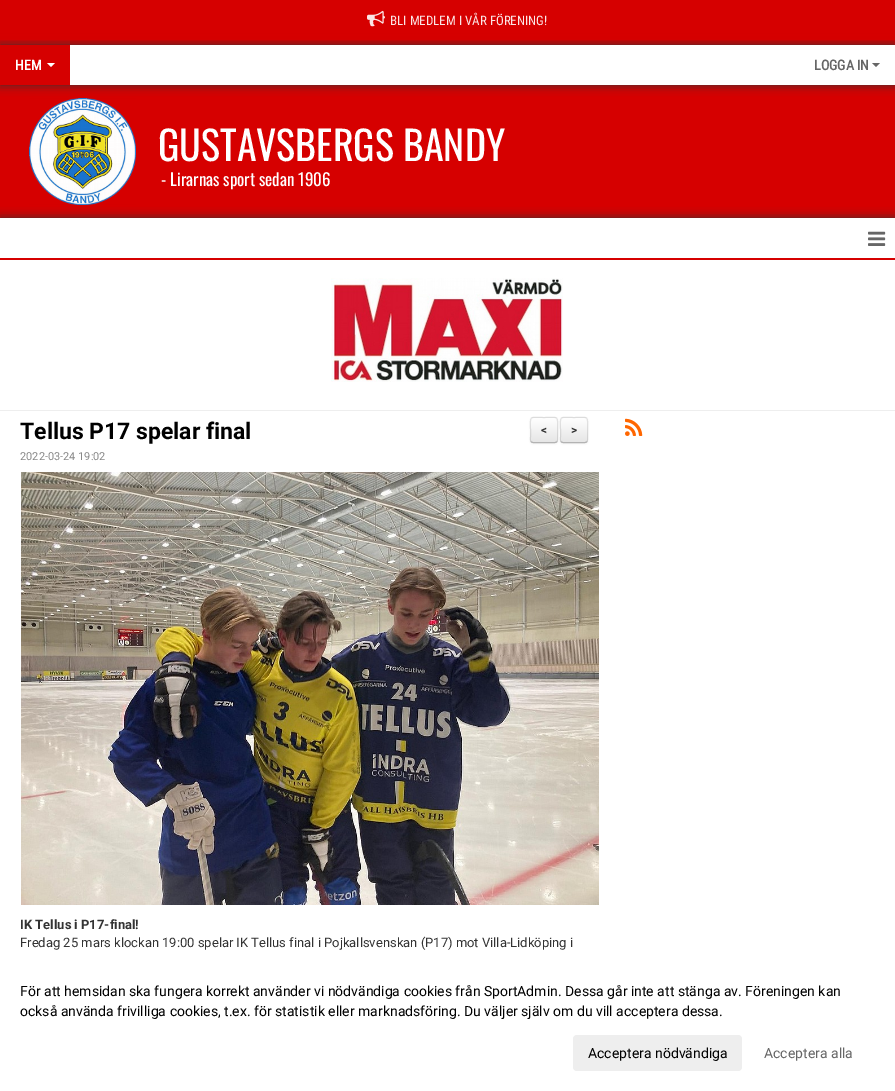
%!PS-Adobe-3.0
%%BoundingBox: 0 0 895 1091
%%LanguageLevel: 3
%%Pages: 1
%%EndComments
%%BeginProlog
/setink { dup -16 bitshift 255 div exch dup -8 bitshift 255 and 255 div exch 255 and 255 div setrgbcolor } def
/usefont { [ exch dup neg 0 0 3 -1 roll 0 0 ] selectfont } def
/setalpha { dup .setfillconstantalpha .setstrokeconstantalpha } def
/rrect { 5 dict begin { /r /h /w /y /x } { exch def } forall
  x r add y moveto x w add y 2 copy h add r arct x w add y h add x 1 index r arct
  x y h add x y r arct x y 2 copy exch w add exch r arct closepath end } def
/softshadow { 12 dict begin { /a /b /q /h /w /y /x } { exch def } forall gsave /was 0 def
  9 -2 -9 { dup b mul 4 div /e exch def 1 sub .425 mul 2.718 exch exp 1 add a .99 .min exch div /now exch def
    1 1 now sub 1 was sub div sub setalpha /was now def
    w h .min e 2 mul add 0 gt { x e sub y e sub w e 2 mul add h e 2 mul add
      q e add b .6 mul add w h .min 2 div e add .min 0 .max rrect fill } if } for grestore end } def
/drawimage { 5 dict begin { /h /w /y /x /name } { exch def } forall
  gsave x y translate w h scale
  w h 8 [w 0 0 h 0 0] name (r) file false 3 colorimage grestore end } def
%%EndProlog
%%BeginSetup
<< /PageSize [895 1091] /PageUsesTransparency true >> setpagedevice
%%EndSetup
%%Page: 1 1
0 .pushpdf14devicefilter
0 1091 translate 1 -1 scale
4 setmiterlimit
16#D60000 setink
0 0 895 1091 rectfill
16#333333 setink
0 45 895 40 0 5 1 softshadow
0.9 setalpha
16#D60000 setink
0 34 895 6 rectfill
1 setalpha
(img1.raw) 367 10 18 17 drawimage
/RobotoCondensed-Regular 13 usefont
16#FBE6E6 setink
390 25 moveto (BLI MEDLEM I VÅR FÖRENING!) show
16#FFFFFF setink
70 45 825 40 rectfill
16#D60000 setink
0 45 70 40 rectfill
/RobotoCondensed-Bold 14 usefont
16#FFFFFF setink
15 70 moveto (HEM) show
47 63 moveto 55 63 lineto 51 67 lineto closepath fill
16#666666 setink
814 70 moveto (LOGGA IN) show
872 63 moveto 880 63 lineto 876 67 lineto closepath fill
16#333333 setink
0 218 895 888 0 5 1 softshadow
(img2.raw) 29 98 107 107 drawimage
/Oswald-Regular 40 usefont
16#FFFFFF setink
158 161 moveto (GUSTAVSBERGS BANDY) show
/Oswald-Regular 17 usefont
161 186 moveto (- Lirarnas sport sedan 1906) show
0 218 895 873 rectfill
16#D60000 setink
0 258 895 2 rectfill
(img3.raw) 868 231 18 15 drawimage
(img4.raw) 331 278 232 104 drawimage
16#EEEEEE setink
0 410 895 1 rectfill
/Roboto-Bold 23 usefont
16#000000 setink
20 439 moveto (Tellus P17 spelar final) show
/Roboto-Regular 11 usefont
16#888888 setink
20 460 moveto (2022-03-24 19:02) show
(img5.raw) 21 472 578 433 drawimage
/Roboto-Bold 13 usefont
16#333333 setink
20 929 moveto (IK Tellus i P17-final!) show
/Roboto-Regular 13 usefont
20 947 moveto (Fredag 25 mars klockan 19:00 spelar IK Tellus final i Pojkallsvenskan \(P17\) mot Villa-Lidköping i) show
16#000000 setink
560 418 28 26 3 1 0.05 softshadow
16#F5F5F5 setink
560 417 28 26 3 rrect fill
gsave
560 417 28 26 3 rrect clip newpath
gsave 560 418 moveto 588 418 lineto 588 442 lineto 560 442 lineto closepath clip newpath
<< /ShadingType 2 /ColorSpace /DeviceRGB /Coords [574 418 574 442] /Extend [true true] /Function << /FunctionType 2 /Domain [0 1] /C0 [1 1 1] /C1 [0.902 0.902 0.902] /N 1 >> >> shfill grestore
grestore
16#B3B3B3 setink
587 442 moveto 586.5 442 585.5 442.5 585 442.5 curveto 563 442.5 lineto 562.5 442.5 561.5 442 561 442 curveto stroke
0.1 setalpha
16#000000 setink
561 442 moveto 560 440.5 560.5 438 560.5 436.5 curveto 560.5 430 lineto 560.5 415 558.5 417.5 574 417.5 curveto 589.5 417.5 587.5 415 587.5 430 curveto 587.5 436.5 lineto 587.5 438 588 440.5 587 442 curveto stroke
1 setalpha
530 418 28 26 3 1 0.05 softshadow
16#F5F5F5 setink
530 417 28 26 3 rrect fill
gsave
530 417 28 26 3 rrect clip newpath
gsave 530 418 moveto 558 418 lineto 558 442 lineto 530 442 lineto closepath clip newpath
<< /ShadingType 2 /ColorSpace /DeviceRGB /Coords [544 418 544 442] /Extend [true true] /Function << /FunctionType 2 /Domain [0 1] /C0 [1 1 1] /C1 [0.902 0.902 0.902] /N 1 >> >> shfill grestore
grestore
16#B3B3B3 setink
557 442 moveto 556.5 442 555.5 442.5 555 442.5 curveto 533 442.5 lineto 532.5 442.5 531.5 442 531 442 curveto stroke
0.1 setalpha
16#000000 setink
531 442 moveto 530 440.5 530.5 438 530.5 436.5 curveto 530.5 430 lineto 530.5 415 528.5 417.5 544 417.5 curveto 559.5 417.5 557.5 415 557.5 430 curveto 557.5 436.5 lineto 557.5 438 558 440.5 557 442 curveto stroke
/Roboto-Bold 12 usefont
1 setalpha
16#333333 setink
541 434 moveto (<) show
571 434 moveto (>) show
(img6.raw) 625 418 18 18 drawimage
/Roboto-Regular 14 usefont
16#000000 setink
20 996 moveto (För att hemsidan ska fungera korrekt använder vi nödvändiga cookies från SportAdmin. Dessa går inte att stänga av. Föreningen kan) show
20 1016 moveto (också använda frivilliga cookies, t.ex. för statistik eller marknadsföring. Du väljer själv om du vill acceptera dessa.) show
16#EEEEEE setink
573 1035 169 36 4 rrect fill
16#000000 setink
588 1058 moveto (Acceptera nödvändiga) show
16#666666 setink
764 1058 moveto (Acceptera alla) show
.poppdf14devicefilter showpage
%%EOF
